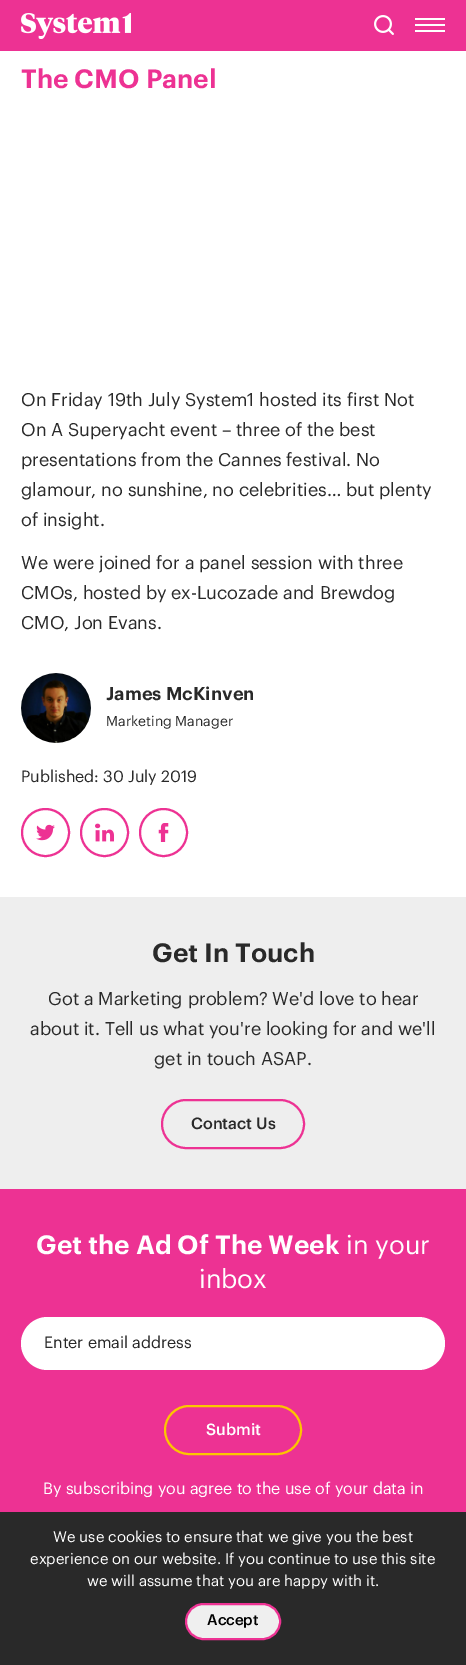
%!PS-Adobe-3.0
%%BoundingBox: 0 0 466 1665
%%LanguageLevel: 3
%%Pages: 1
%%EndComments
%%BeginProlog
/setink { dup -16 bitshift 255 div exch dup -8 bitshift 255 and 255 div exch 255 and 255 div setrgbcolor } def
/usefont { [ exch dup neg 0 0 3 -1 roll 0 0 ] selectfont } def
/disc { newpath 0 360 arc closepath } def
/rrect { 5 dict begin { /r /h /w /y /x } { exch def } forall
  x r add y moveto x w add y 2 copy h add r arct x w add y h add x 1 index r arct
  x y h add x y r arct x y 2 copy exch w add exch r arct closepath end } def
/drawimage { 5 dict begin { /h /w /y /x /name } { exch def } forall
  gsave x y translate w h scale
  w h 8 [w 0 0 h 0 0] name (r) file false 3 colorimage grestore end } def
%%EndProlog
%%BeginSetup
<< /PageSize [466 1665] >> setpagedevice
%%EndSetup
%%Page: 1 1
0 1665 translate 1 -1 scale
4 setmiterlimit
16#FFFFFF setink
0 0 466 1665 rectfill
16#ED3293 setink
0 0 466 51 rectfill
(img1.raw) 21 13 110 26 drawimage
(img2.raw) 374 15 20 20 drawimage
[
    [415 18 30 2 16#FFFFFF]
    [415 24 30 2 16#FFFFFF]
    [415 30 30 2 16#FFFFFF]
] { aload pop setink rectfill } forall
/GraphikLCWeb-SemiBold 26 usefont
16#ED3293 setink
21 88 moveto (The CMO Panel) show
/Graphik-Regular 18 usefont
16#292929 setink
[
    [(On Friday 19th July System1 hosted its first Not) 21 406]
    [(On A Superyacht event – three of the best) 21 436]
    [(presentations from the Cannes festival. No) 21 466]
    [(glamour, no sunshine, no celebrities… but plenty) 21 496]
    [(of insight.) 21 526]
    [(We were joined for a panel session with three) 21 569]
    [(CMOs, hosted by ex-Lucozade and Brewdog) 21 599]
    [(CMO, Jon Evans.) 21 629]
] { aload pop moveto show } forall
(img3.raw) 21 673 70 70 drawimage
/GraphikLCWeb-SemiBold 18 usefont
106 700 moveto (James McKinven) show
/Graphik-Regular 14 usefont
106 726 moveto (Marketing Manager) show
/Graphik-Regular 16 usefont
21 782 moveto (Published: 30 July 2019) show
16#ED3293 setink
2 setlinewidth
45.5 832.5 23.5 disc stroke
(img4.raw) 36 824 19 17 drawimage
104.5 832.5 23.5 disc stroke
(img5.raw) 95 823 19 19 drawimage
163.5 832.5 23.5 disc stroke
(img6.raw) 158 823 11 19 drawimage
16#EEEEEE setink
0 897 466 292 rectfill
/GraphikLCWeb-SemiBold 26 usefont
16#292929 setink
152 962 moveto (Get In Touch) show
/Graphik-Regular 18 usefont
[
    [(Got a Marketing problem? We'd love to hear) 48 1005]
    [(about it. Tell us what you're looking for and we'll) 30 1035]
    [(get in touch ASAP.) 154 1065]
] { aload pop moveto show } forall
16#ED3293 setink
162 1100 142 48 24 rrect stroke
/Graphik-Medium 16 usefont
16#292929 setink
191 1129 moveto (Contact Us) show
16#ED3293 setink
0 1189 466 323 rectfill
/GraphikLCWeb-SemiBold 26 usefont
16#FFFFFF setink
36 1254 moveto (Get the Ad Of The Week) show
/Graphik-Regular 26 usefont
346 1254 moveto (in your) show
199 1288 moveto (inbox) show
21 1317 424 53 26.5 rrect fill
/Graphik-Regular 16 usefont
16#292929 setink
44 1348 moveto (Enter email address) show
16#FCC600 setink
165 1406 136 48 24 rrect stroke
/Graphik-Medium 16 usefont
16#FFFFFF setink
206 1435 moveto (Submit) show
/Graphik-Regular 16 usefont
43 1494 moveto (By subscribing you agree to the use of your data in) show
16#292929 setink
0 1512 466 153 rectfill
/Graphik-Regular 15 usefont
16#FFFFFF setink
[
    [(We use cookies to ensure that we give you the best) 53 1542]
    [(experience on our website. If you continue to use this site) 30 1564]
    [(we will assume that you are happy with it.) 87 1586]
] { aload pop moveto show } forall
16#EFEFEF setink
186 1604 94 35 17.5 rrect gsave fill grestore
16#ED3293 setink
stroke
/Graphik-Medium 15 usefont
16#000000 setink
207 1625 moveto (Accept) show
showpage
%%EOF
